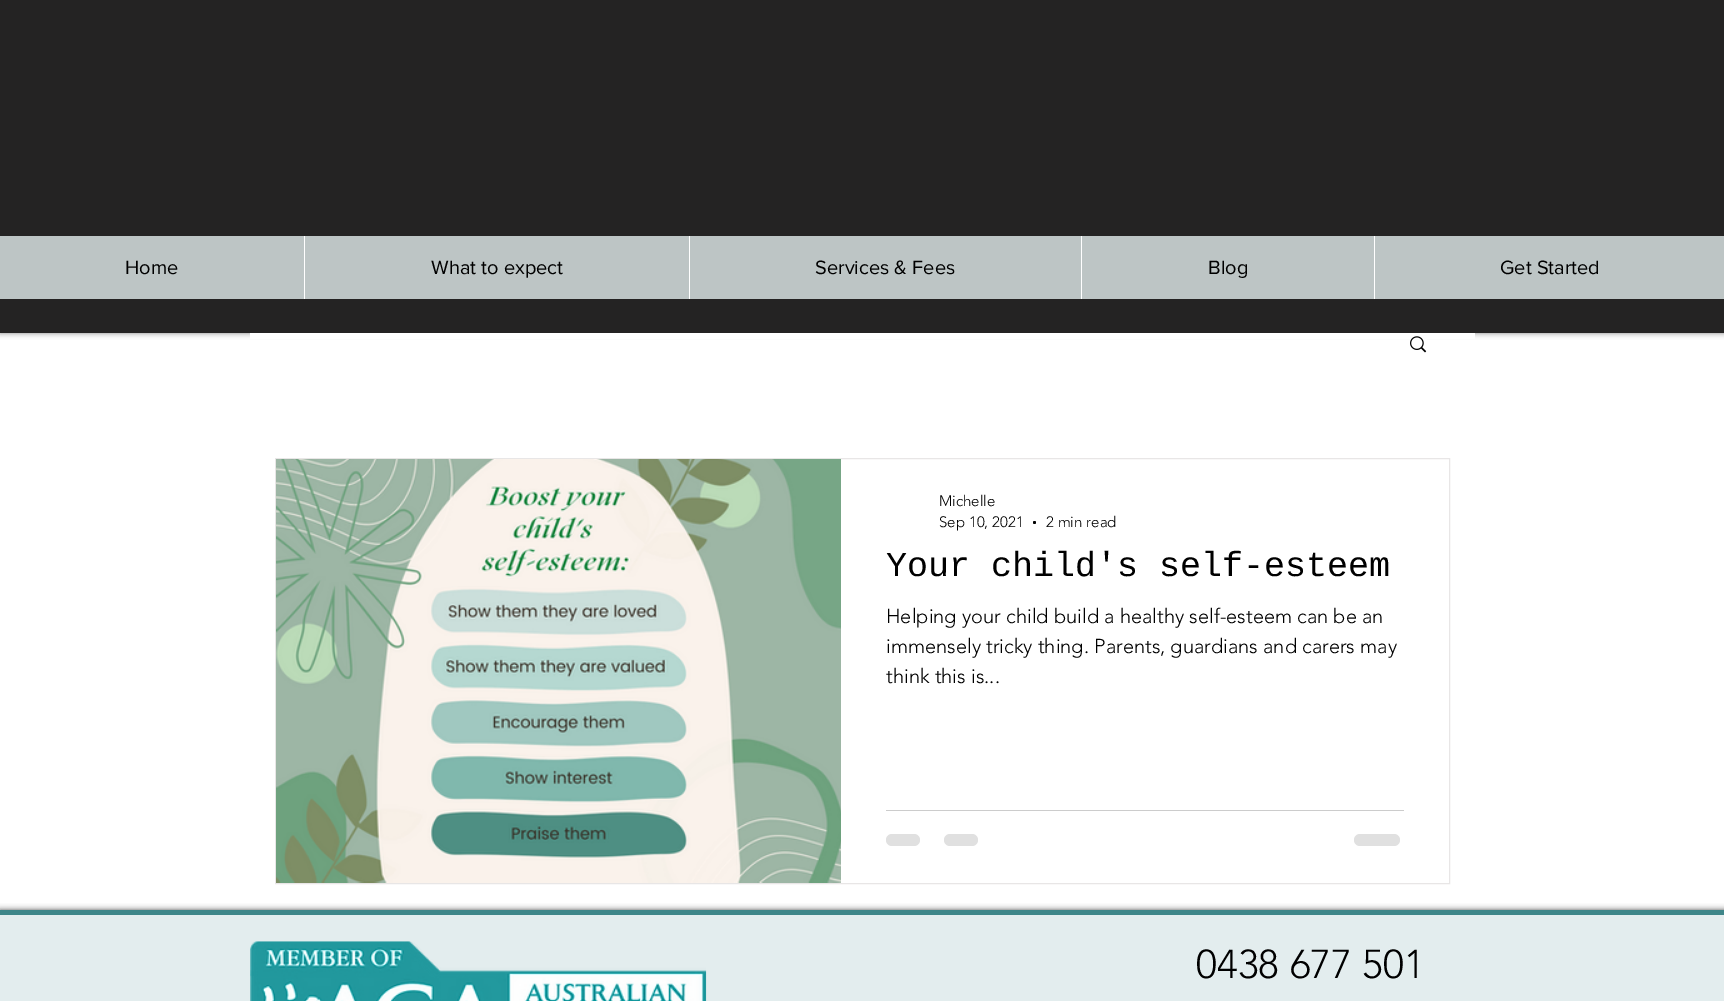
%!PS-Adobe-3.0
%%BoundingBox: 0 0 1724 1001
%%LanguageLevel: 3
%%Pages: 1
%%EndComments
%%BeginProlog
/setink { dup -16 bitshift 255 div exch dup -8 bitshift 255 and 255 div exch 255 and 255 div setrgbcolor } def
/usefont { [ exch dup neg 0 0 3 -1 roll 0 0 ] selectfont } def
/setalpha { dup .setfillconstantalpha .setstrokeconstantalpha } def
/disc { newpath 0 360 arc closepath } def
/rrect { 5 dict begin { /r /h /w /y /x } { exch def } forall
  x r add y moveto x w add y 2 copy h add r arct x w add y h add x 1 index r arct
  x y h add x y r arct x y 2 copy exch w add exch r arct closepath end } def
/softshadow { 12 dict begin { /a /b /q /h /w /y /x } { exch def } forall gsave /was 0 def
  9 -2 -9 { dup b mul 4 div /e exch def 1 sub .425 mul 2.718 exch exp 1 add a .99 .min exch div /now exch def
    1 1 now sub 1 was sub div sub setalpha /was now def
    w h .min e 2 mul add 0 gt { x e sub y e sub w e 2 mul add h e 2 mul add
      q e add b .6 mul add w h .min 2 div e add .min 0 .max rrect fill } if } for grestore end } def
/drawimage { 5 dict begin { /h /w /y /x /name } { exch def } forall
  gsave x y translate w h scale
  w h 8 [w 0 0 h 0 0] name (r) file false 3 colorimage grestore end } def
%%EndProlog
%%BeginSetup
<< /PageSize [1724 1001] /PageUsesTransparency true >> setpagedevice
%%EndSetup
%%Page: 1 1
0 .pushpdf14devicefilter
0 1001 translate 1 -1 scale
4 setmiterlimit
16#FFFFFF setink
0 0 1724 1001 rectfill
16#000000 setink
0 -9 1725 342 0 3 0.5 softshadow
16#242323 setink
0 0 1724 333 rectfill
16#BDC5C5 setink
0 236 1724 63 rectfill
/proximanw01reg-Regular 20 usefont
16#000000 setink
125 274 moveto (Home) show
16#FFFFFF setink
304 236 1 63 rectfill
16#000000 setink
431 274 moveto (What to expect) show
16#FFFFFF setink
689 236 1 63 rectfill
16#000000 setink
815 274 moveto (Services & Fees) show
16#FFFFFF setink
1081 236 1 63 rectfill
16#000000 setink
1208 274 moveto (Blog) show
16#FFFFFF setink
1374 236 1 63 rectfill
16#000000 setink
1500 274 moveto (Get Started) show
16#FFFFFF setink
250 333 1225 6 rectfill
(img1.raw) 1410 336 17 17 drawimage
16#E8E6E6 setink
275.5 458.5 1174 425 rectstroke
(img2.raw) 276 459 565 424 drawimage
/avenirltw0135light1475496-Light 15 usefont
16#000000 setink
939 506 moveto (Michelle) show
939 527 moveto (Sep 10, 2021) show
1034.5 522.5 1.5 disc fill
1046 527 moveto (2 min read) show
/LiberationMono-Regular 35 usefont
886 576 moveto (Your child's self-esteem) show
/avenirltw0135light1475496-Light 20 usefont
[
    [(Helping your child build a healthy self-esteem can be an) 886 623]
    [(immensely tricky thing. Parents, guardians and carers may) 886 653]
    [(think this is...) 886 683]
] { aload pop moveto show } forall
16#CCCCCC setink
886 810 518 1 rectfill
16#E0E0E0 setink
886 834 34 12 6 rrect fill
944 834 34 12 6 rrect fill
1354 834 46 12 6 rrect fill
16#000000 setink
0 910 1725 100 0 3 0.7 softshadow
16#E3EDEE setink
0 915 1724 86 rectfill
16#3E8689 setink
0 910 1724 5 rectfill
(img3.raw) 250 941 457 60 drawimage
/avenirltw0135light1475496-Light 40 usefont
16#000000 setink
1196 978 moveto (0438 677 501) show
.poppdf14devicefilter showpage
%%EOF
